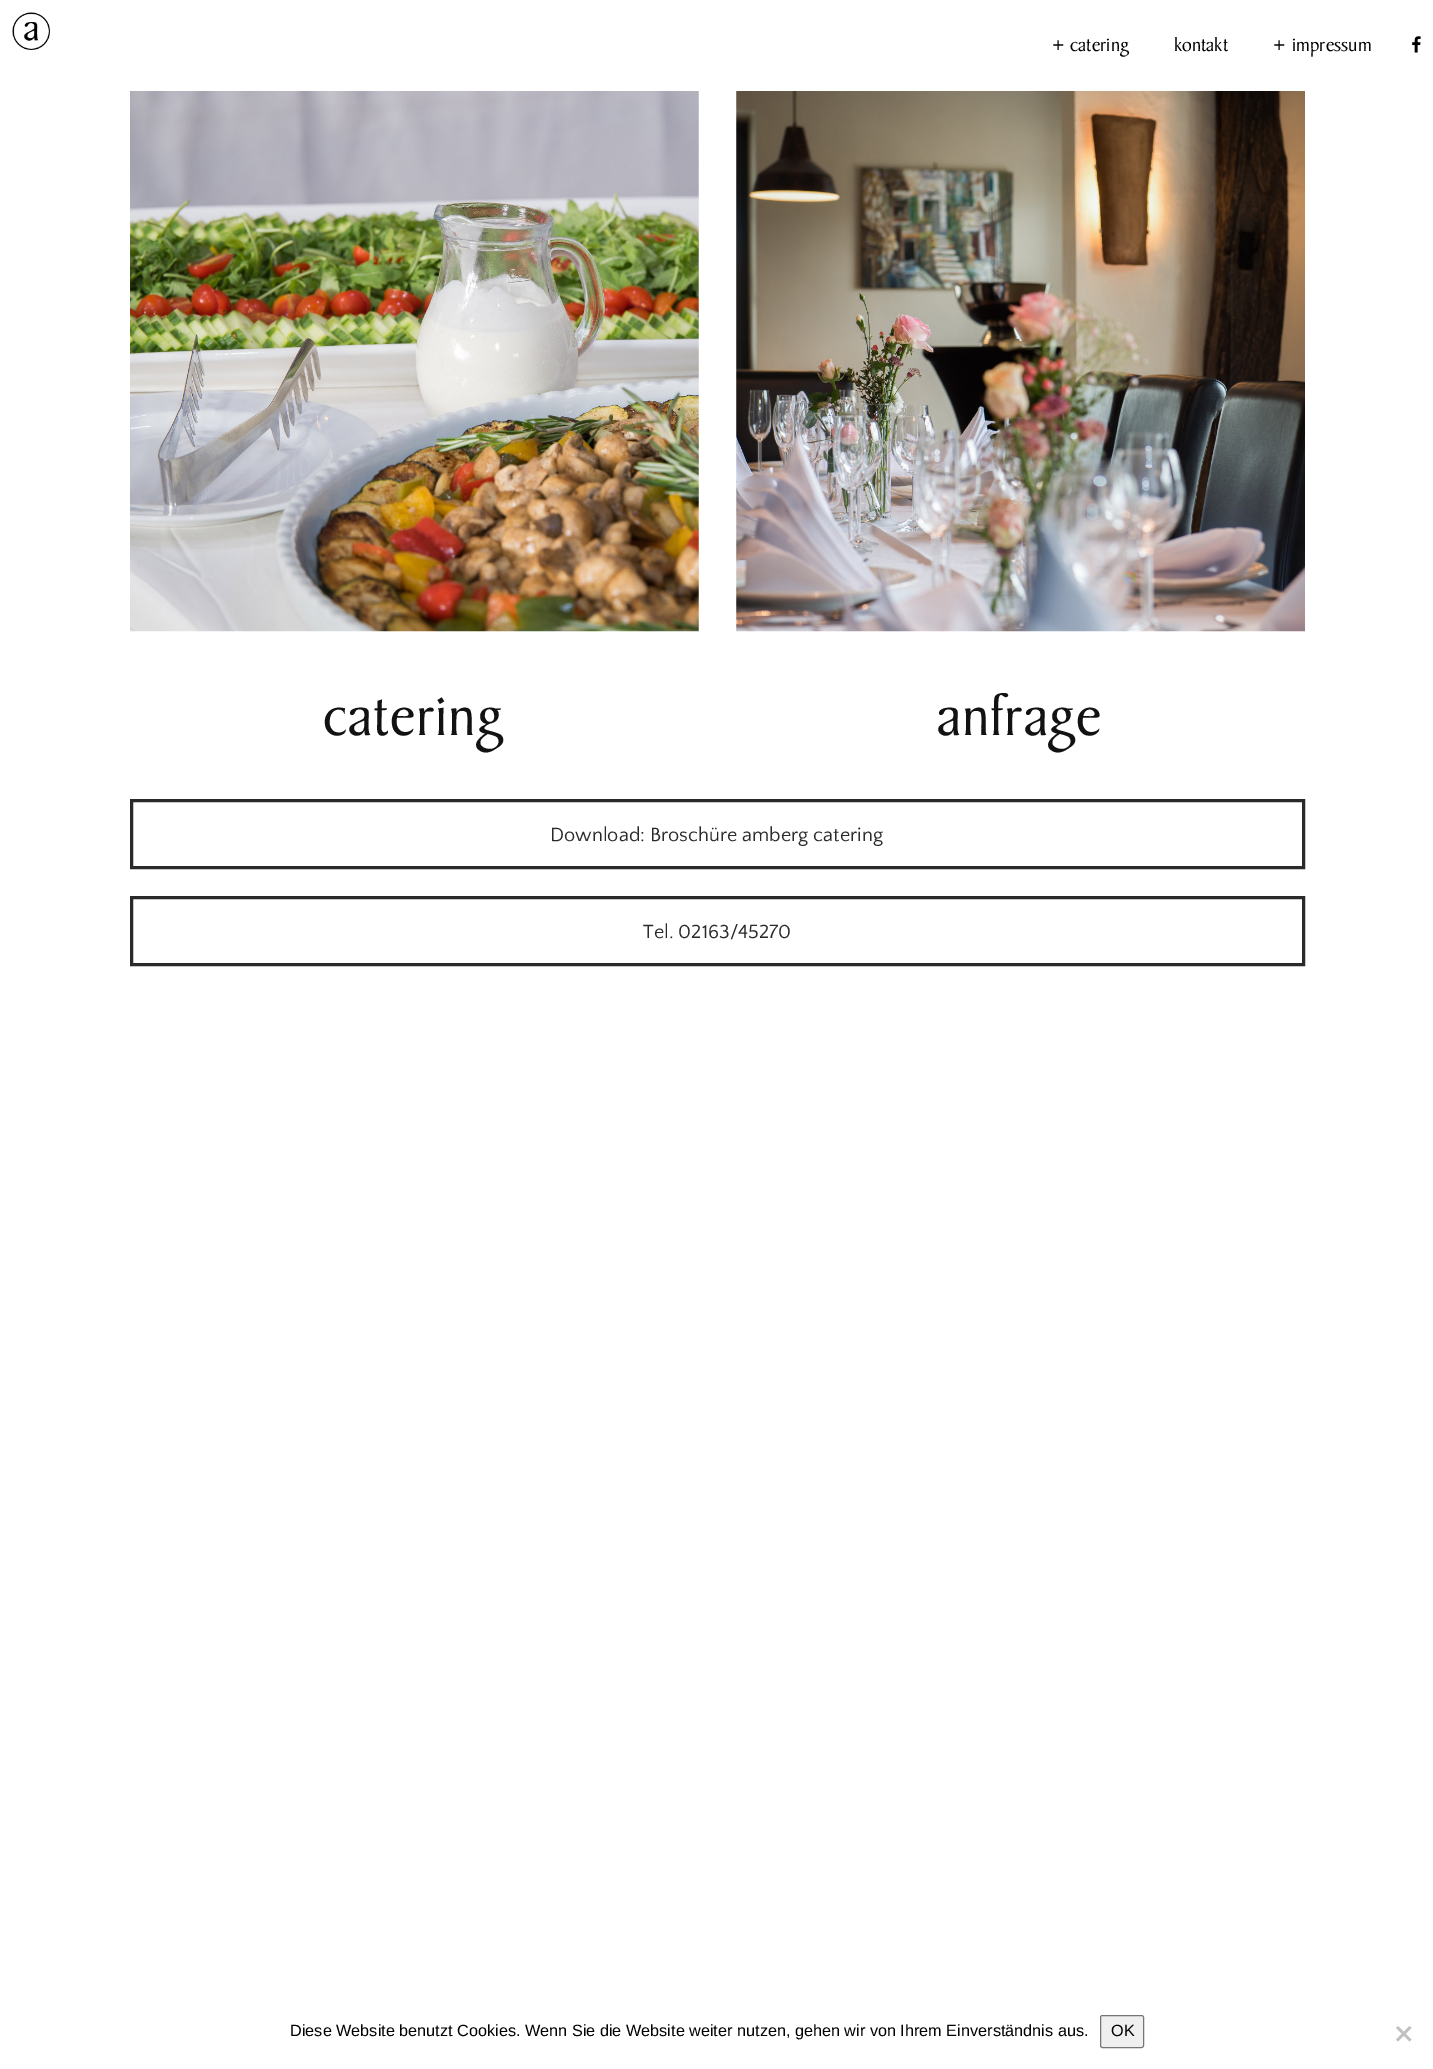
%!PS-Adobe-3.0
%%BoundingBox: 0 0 1433 2069
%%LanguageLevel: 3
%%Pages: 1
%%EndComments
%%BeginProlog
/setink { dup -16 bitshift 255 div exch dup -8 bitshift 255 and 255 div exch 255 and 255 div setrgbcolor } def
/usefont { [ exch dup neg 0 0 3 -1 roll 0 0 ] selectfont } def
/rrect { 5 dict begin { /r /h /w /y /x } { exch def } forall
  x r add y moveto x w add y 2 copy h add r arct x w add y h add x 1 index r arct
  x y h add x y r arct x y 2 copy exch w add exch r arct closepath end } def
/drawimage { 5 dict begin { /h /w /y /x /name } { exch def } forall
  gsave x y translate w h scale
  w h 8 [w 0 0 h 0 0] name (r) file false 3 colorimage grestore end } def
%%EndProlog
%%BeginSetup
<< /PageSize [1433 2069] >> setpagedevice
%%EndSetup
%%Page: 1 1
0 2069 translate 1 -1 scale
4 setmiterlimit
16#FFFFFF setink
0 0 1433 2069 rectfill
(img1.raw) 12 12 38 38 drawimage
/QuattrocentoSans-Regular 25 usefont
16#000000 setink
1052 51 moveto (+) show
/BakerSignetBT-Regular 20 usefont
1070 51 moveto (catering) show
1174 51 moveto (kontakt) show
/QuattrocentoSans-Regular 25 usefont
1273 51 moveto (+) show
/BakerSignetBT-Regular 20 usefont
1292 51 moveto (impressum) show
(img2.raw) 1412 36 9 17 drawimage
(img3.raw) 130 91 569 541 drawimage
/BakerSignetBT-Regular 60 usefont
16#121213 setink
323 735 moveto 0.5 0 (catering) ashow
(img4.raw) 736 91 569 541 drawimage
937 735 moveto 0.5 0 (anfrage) ashow
16#2A2A2A setink
3 setlinewidth
131.5 800.5 1172 67 rectstroke
/QuattrocentoSans-Regular 20 usefont
550 841 moveto (Download: Broschüre amberg catering) show
131.5 897.5 1172 67 rectstroke
643 938 moveto (Tel. 02163/45270) show
/LiberationSans-Regular 16.25 usefont
16#000000 setink
290 2036 moveto (Diese Website benutzt Cookies. Wenn Sie die Website weiter nutzen, gehen wir von Ihrem Einverständnis aus.) show
16#EFEFEF setink
1100.5 2015.5 43 32 2 rrect gsave fill grestore
16#767676 setink
1 setlinewidth
stroke
16#000000 setink
1111 2036 moveto (OK) show
16#C0C0C0 setink
1409.5 2026 moveto 1411.5 2028 lineto 1398 2041.5 lineto 1396 2039.5 lineto closepath fill
1396 2028 moveto 1398 2026 lineto 1411.5 2039.5 lineto 1409.5 2041.5 lineto closepath fill
showpage
%%EOF
